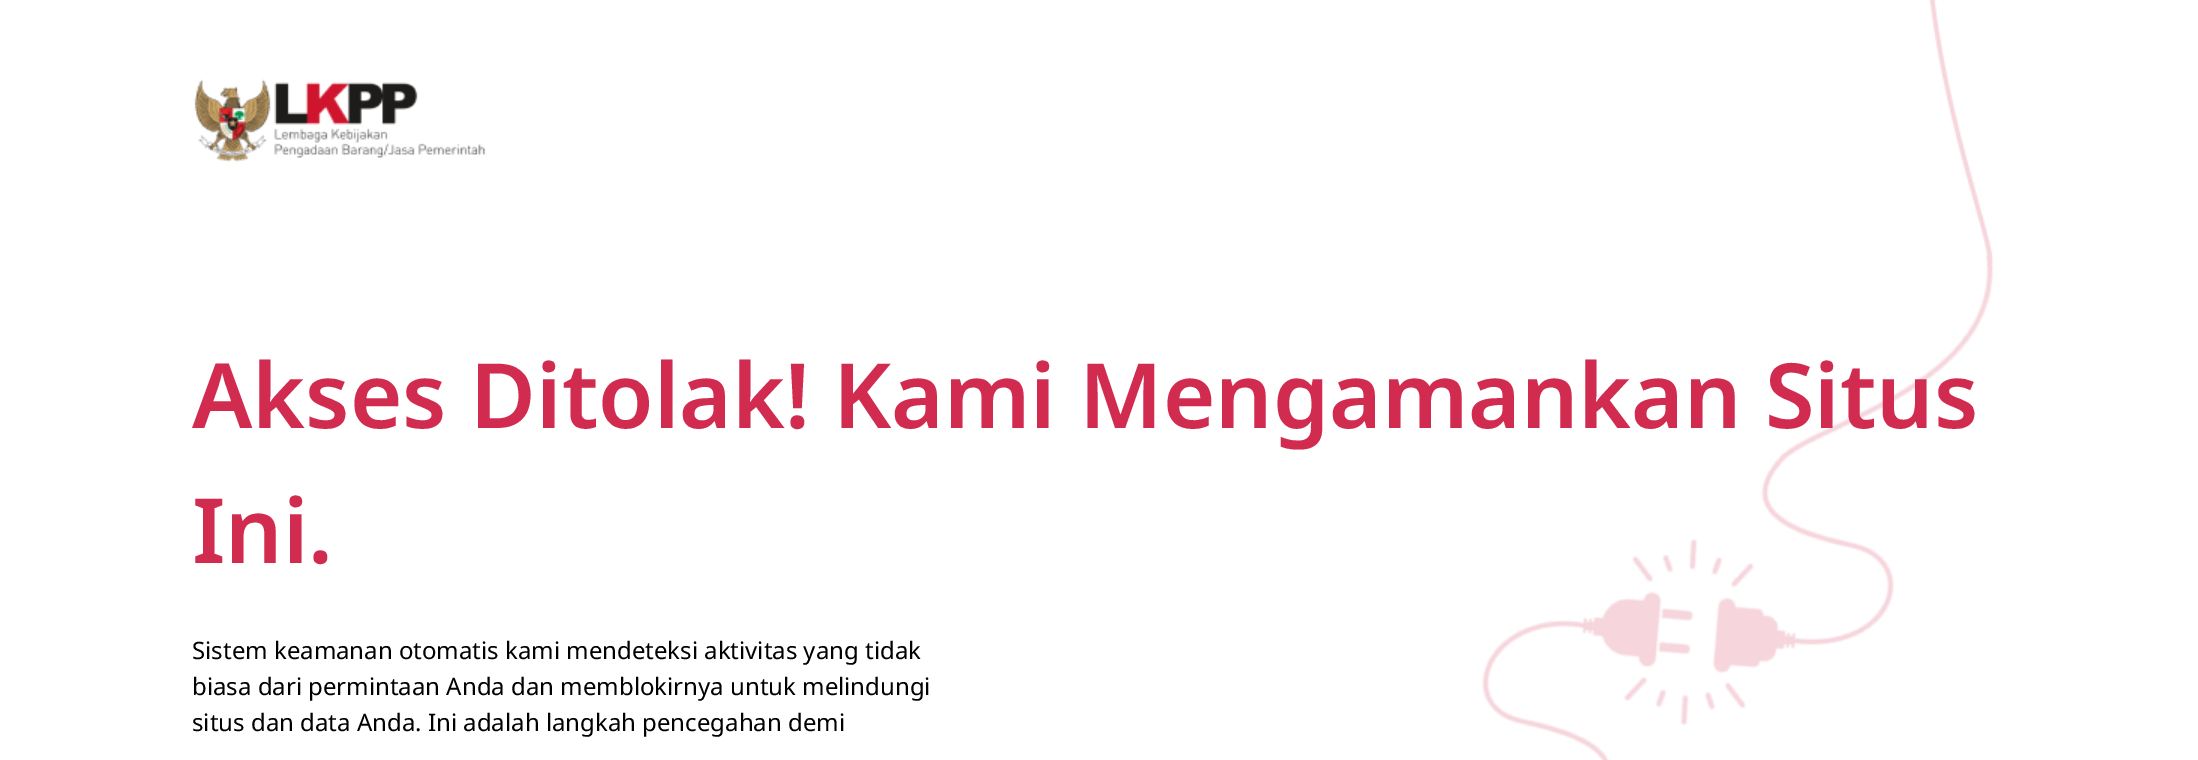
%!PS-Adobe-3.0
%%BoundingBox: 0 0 2198 760
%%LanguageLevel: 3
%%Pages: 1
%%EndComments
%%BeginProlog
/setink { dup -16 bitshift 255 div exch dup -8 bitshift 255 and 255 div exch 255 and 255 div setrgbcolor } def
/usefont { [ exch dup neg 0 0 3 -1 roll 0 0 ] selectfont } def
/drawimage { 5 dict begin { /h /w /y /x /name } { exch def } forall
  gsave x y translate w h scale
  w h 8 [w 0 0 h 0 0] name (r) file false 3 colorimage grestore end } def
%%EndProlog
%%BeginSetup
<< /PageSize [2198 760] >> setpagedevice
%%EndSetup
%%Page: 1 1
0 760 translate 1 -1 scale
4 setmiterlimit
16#FFFFFF setink
0 0 2198 760 rectfill
(img1.raw) 1482 0 512 760 drawimage
(img2.raw) 194 79 292 83 drawimage
/NotoSans-SemiBold 90 usefont
16#D22B50 setink
192 428 moveto (Akses Ditolak! Kami Mengamankan Situs) show
192 563 moveto (Ini.) show
/NotoSans-Regular 24 usefont
16#000000 setink
[
    [(Sistem keamanan otomatis kami mendeteksi aktivitas yang tidak) 192 659]
    [(biasa dari permintaan Anda dan memblokirnya untuk melindungi) 192 695]
    [(situs dan data Anda. Ini adalah langkah pencegahan demi) 192 731]
] { aload pop moveto show } forall
showpage
%%EOF
